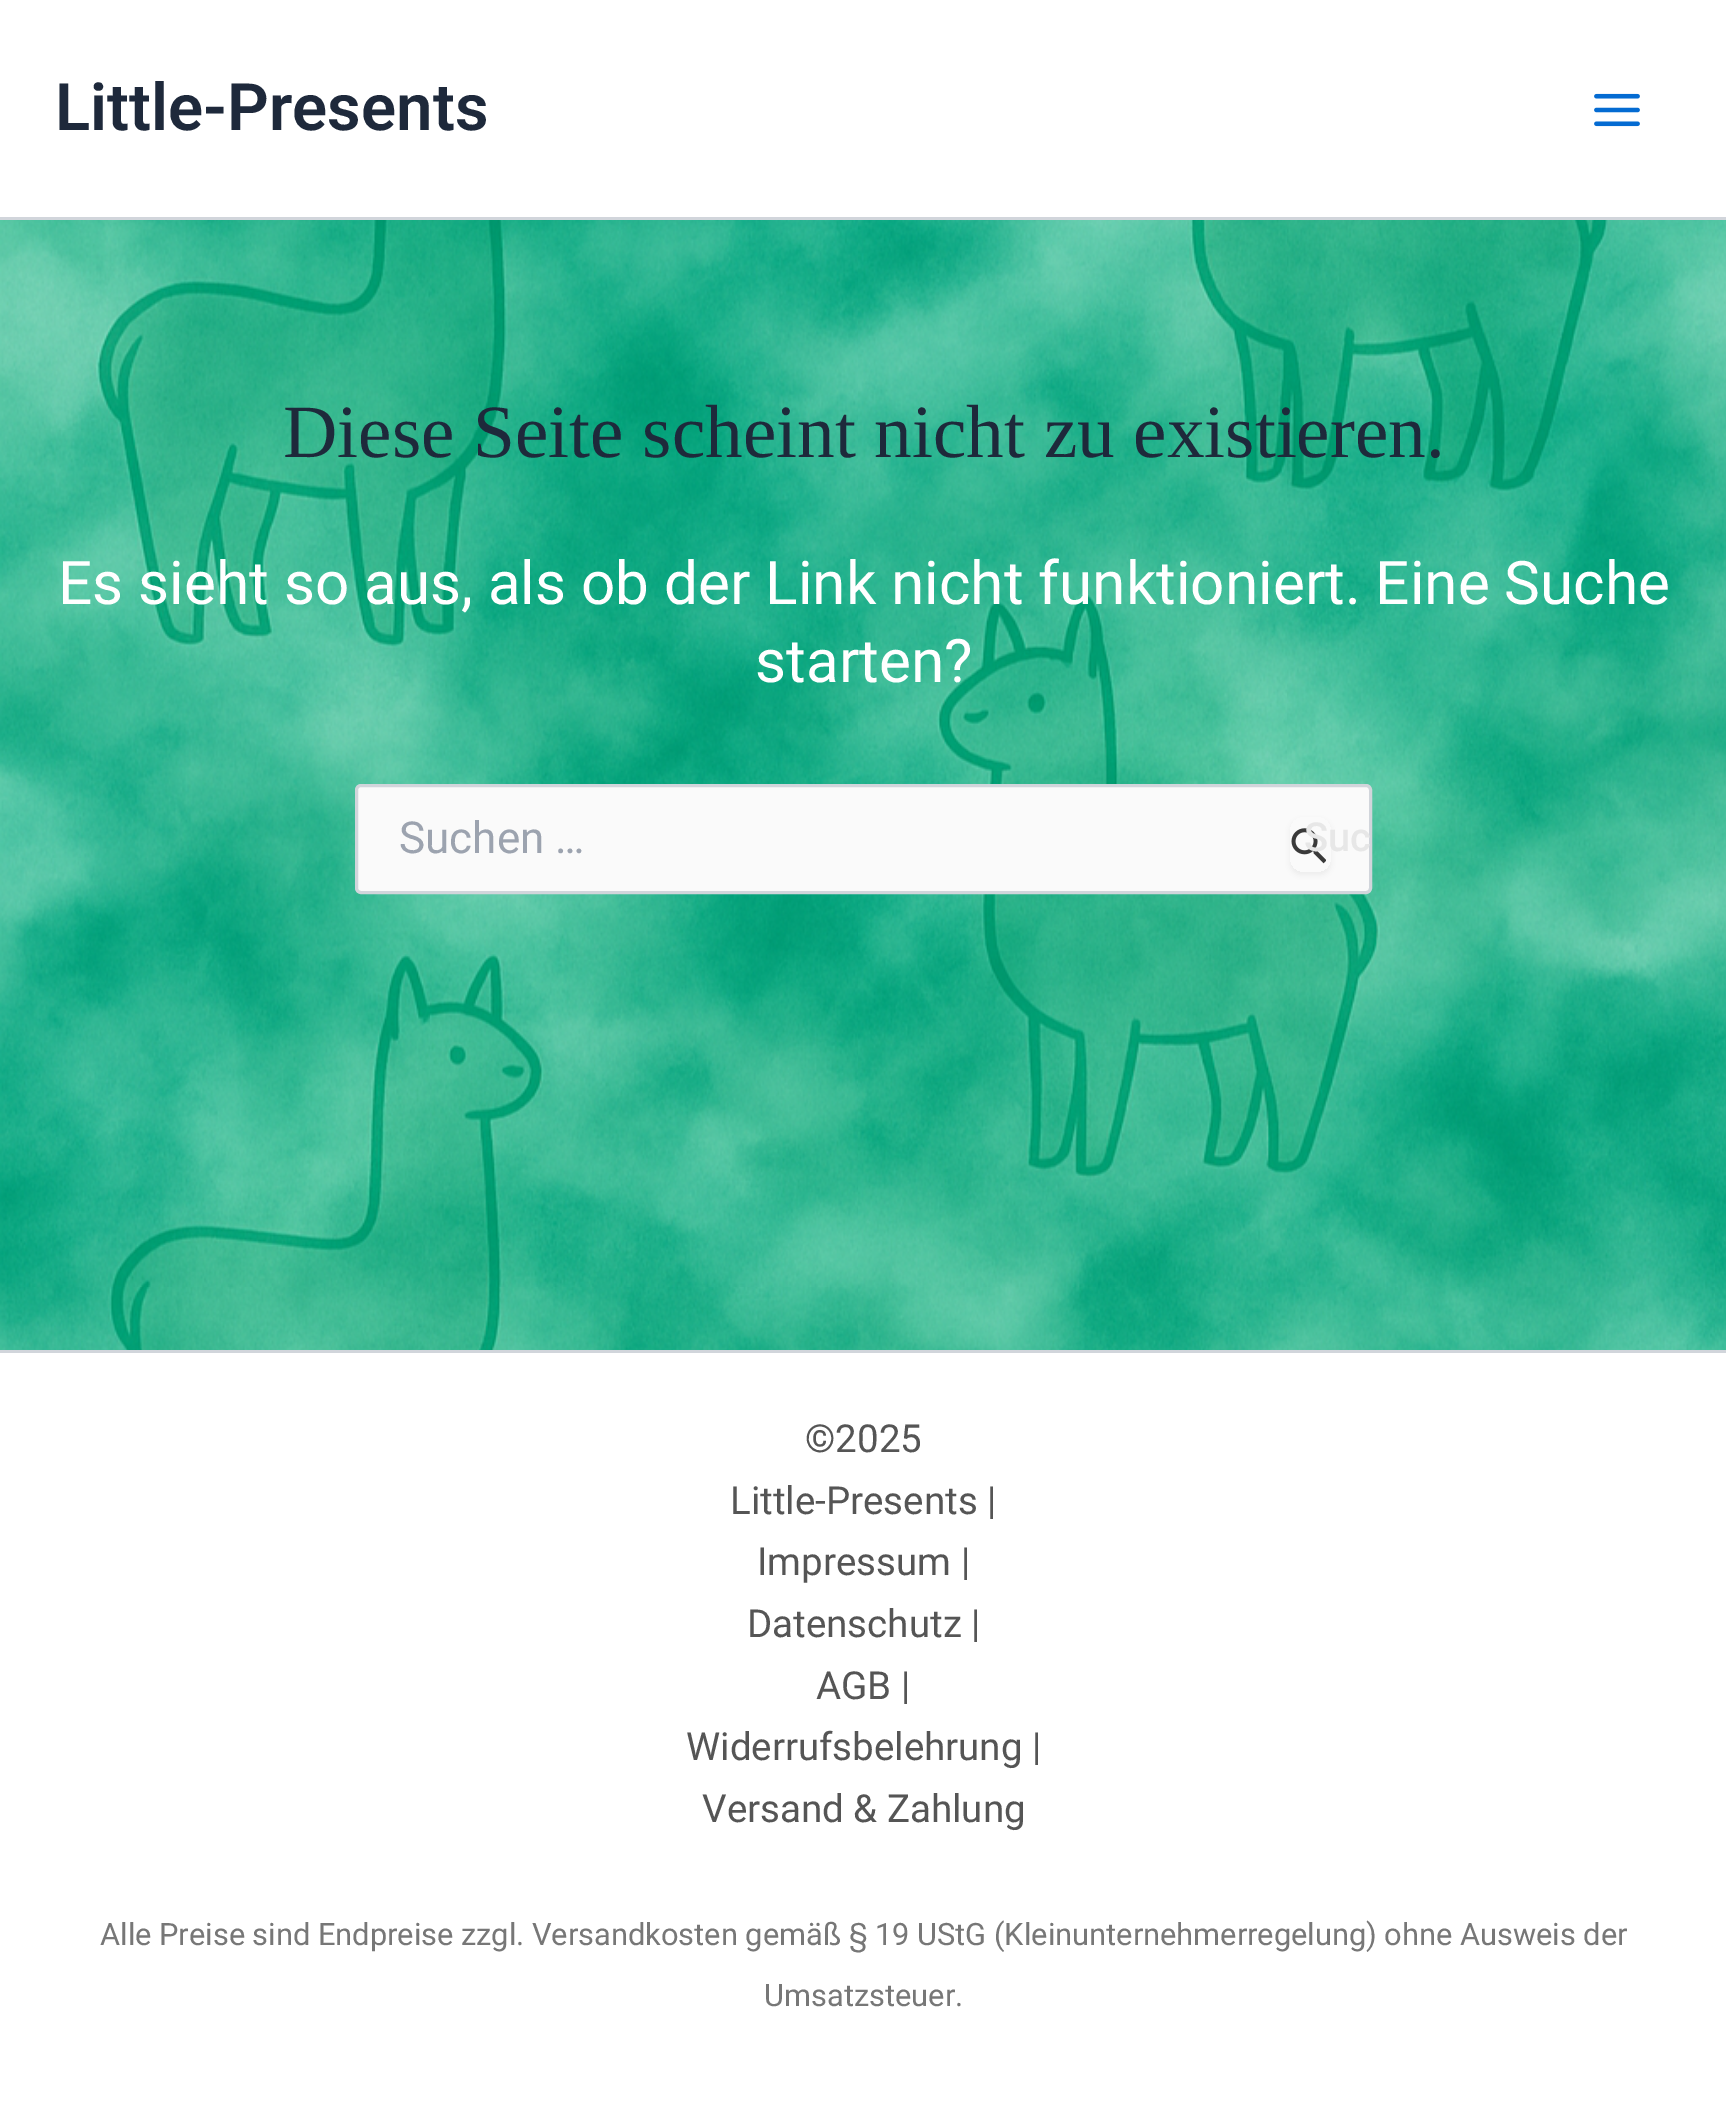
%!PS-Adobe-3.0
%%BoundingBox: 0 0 1726 2105
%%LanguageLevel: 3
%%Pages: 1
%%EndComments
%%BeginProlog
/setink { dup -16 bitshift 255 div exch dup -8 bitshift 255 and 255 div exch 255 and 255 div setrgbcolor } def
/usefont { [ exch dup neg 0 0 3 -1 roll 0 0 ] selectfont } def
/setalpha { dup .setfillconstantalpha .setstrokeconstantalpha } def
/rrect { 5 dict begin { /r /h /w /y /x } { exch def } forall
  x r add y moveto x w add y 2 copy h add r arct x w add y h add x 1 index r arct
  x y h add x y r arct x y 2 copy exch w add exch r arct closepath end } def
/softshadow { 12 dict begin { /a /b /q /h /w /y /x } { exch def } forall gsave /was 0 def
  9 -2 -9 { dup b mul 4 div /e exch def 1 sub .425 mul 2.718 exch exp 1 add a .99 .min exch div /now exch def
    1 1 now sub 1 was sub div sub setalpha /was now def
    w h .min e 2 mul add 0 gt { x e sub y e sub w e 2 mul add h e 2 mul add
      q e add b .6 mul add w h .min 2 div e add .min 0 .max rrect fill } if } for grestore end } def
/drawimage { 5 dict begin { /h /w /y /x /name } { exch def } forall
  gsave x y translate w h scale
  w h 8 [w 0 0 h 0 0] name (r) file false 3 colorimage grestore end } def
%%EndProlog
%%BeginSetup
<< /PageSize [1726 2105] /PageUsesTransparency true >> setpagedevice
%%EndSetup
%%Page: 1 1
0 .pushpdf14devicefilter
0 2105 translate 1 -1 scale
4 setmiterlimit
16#FFFFFF setink
0 0 1726 2105 rectfill
(img1.raw) 0 220 1726 1130 drawimage
16#D1D5DB setink
0 217 1726 3 rectfill
/Roboto-SemiBold 65.25 usefont
16#1E293B setink
55 130 moveto (Little-Presents) show
(img2.raw) 1594 93 46 34 drawimage
/LiberationSerif-Regular 75.25 usefont
283 457 moveto (Diese Seite scheint nicht zu existieren.) show
/Roboto-Regular 60.2 usefont
16#FFFFFF setink
58 604 moveto (Es sieht so aus, als ob der Link nicht funktioniert. Eine Suche) show
755 682 moveto (starten?) show
16#FAFAFA setink
356.5 785.5 1014 107 4.5 rrect gsave fill grestore
16#D1D5DB setink
3 setlinewidth
stroke
/Roboto-Regular 44 usefont
16#9CA3AF setink
399 853 moveto (Suchen …) show
gsave
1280 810 moveto 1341 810 lineto 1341 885 lineto 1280 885 lineto closepath 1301 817 moveto 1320 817 lineto 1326 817 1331 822 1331 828 curveto 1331 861 lineto 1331 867 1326 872 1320 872 curveto 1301 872 lineto 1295 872 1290 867 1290 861 curveto 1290 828 lineto 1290 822 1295 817 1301 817 curveto closepath eoclip newpath
16#000000 setink
1290 820 41 55 11 3 0.05 softshadow
grestore
(img3.raw) 1291 828 35 36 drawimage
/Roboto-Medium 40 usefont
16#E7E7E7 setink
1304 851 moveto (Suc) show
16#D1D5DB setink
0 1350 1726 3 rectfill
/Roboto-Regular 38.5 usefont
16#555555 setink
[
    [(©2025) 805 1452]
    [(Little-Presents |) 730 1514]
    [(Impressum |) 757 1575]
    [(Datenschutz |) 747 1637]
    [(AGB |) 816 1699]
    [(Widerrufsbelehrung |) 686 1760]
    [(Versand & Zahlung) 702 1822]
] { aload pop moveto show } forall
/Roboto-Regular 30.8 usefont
16#777777 setink
100 1945 moveto -0.1 0 32 (Alle Preise sind Endpreise zzgl. Versandkosten gemäß § 19 UStG \(Kleinunternehmerregelung\) ohne Ausweis der) widthshow
764 2006 moveto (Umsatzsteuer.) show
.poppdf14devicefilter showpage
%%EOF
